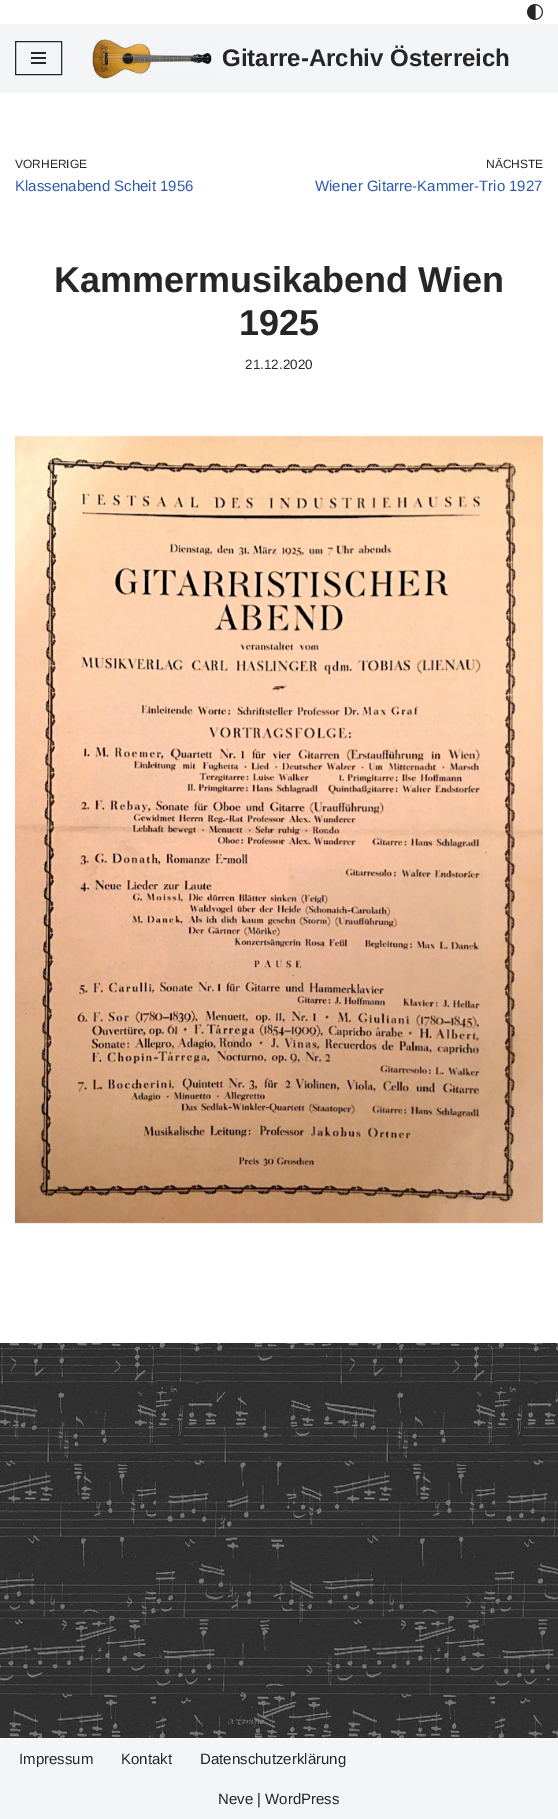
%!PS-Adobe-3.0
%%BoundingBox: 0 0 558 1819
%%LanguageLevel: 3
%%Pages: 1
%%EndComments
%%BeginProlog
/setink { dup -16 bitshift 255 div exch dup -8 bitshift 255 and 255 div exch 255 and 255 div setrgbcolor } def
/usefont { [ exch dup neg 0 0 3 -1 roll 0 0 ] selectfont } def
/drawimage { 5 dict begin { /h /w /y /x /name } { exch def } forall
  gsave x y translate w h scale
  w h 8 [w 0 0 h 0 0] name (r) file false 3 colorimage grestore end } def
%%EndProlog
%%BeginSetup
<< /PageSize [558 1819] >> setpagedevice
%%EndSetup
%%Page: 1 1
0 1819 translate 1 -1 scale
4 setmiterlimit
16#FFFFFF setink
0 0 558 1819 rectfill
(img1.raw) 0 1343 558 395 drawimage
(img2.raw) 527 4 16 16 drawimage
16#F4F5F7 setink
0 24 558 69 rectfill
16#272626 setink
15.5 41.5 46 33 rectstroke
[
    [31 52 15 2 16#272626]
    [31 57 15 2 16#272626]
    [31 62 15 2 16#272626]
] { aload pop setink rectfill } forall
(img3.raw) 92 39 120 40 drawimage
/LiberationSans-Bold 24 usefont
222 66 moveto (Gitarre-Archiv Österreich) show
/LiberationSans-Regular 12 usefont
15 168 moveto (VORHERIGE) show
/LiberationSans-Regular 15 usefont
16#2F5AAE setink
15 191 moveto (Klassenabend Scheit 1956) show
/LiberationSans-Regular 12 usefont
16#272626 setink
486 168 moveto (NÄCHSTE) show
/LiberationSans-Regular 15 usefont
16#2F5AAE setink
315 191 moveto (Wiener Gitarre-Kammer-Trio 1927) show
/LiberationSans-Bold 36 usefont
16#272626 setink
54 292 moveto (Kammermusikabend Wien) show
239 335 moveto (1925) show
/LiberationSans-Regular 13.5 usefont
245 369 moveto (21.12.2020) show
(img4.raw) 15 435 528 789 drawimage
16#F4F5F7 setink
0 1738 558 81 rectfill
/LiberationSans-Regular 15 usefont
16#272626 setink
[
    [(Impressum) 19 1764]
    [(Kontakt) 121 1764]
    [(Datenschutzerklärung) 200 1764]
    [(Neve | WordPress) 218 1804]
] { aload pop moveto show } forall
showpage
%%EOF
